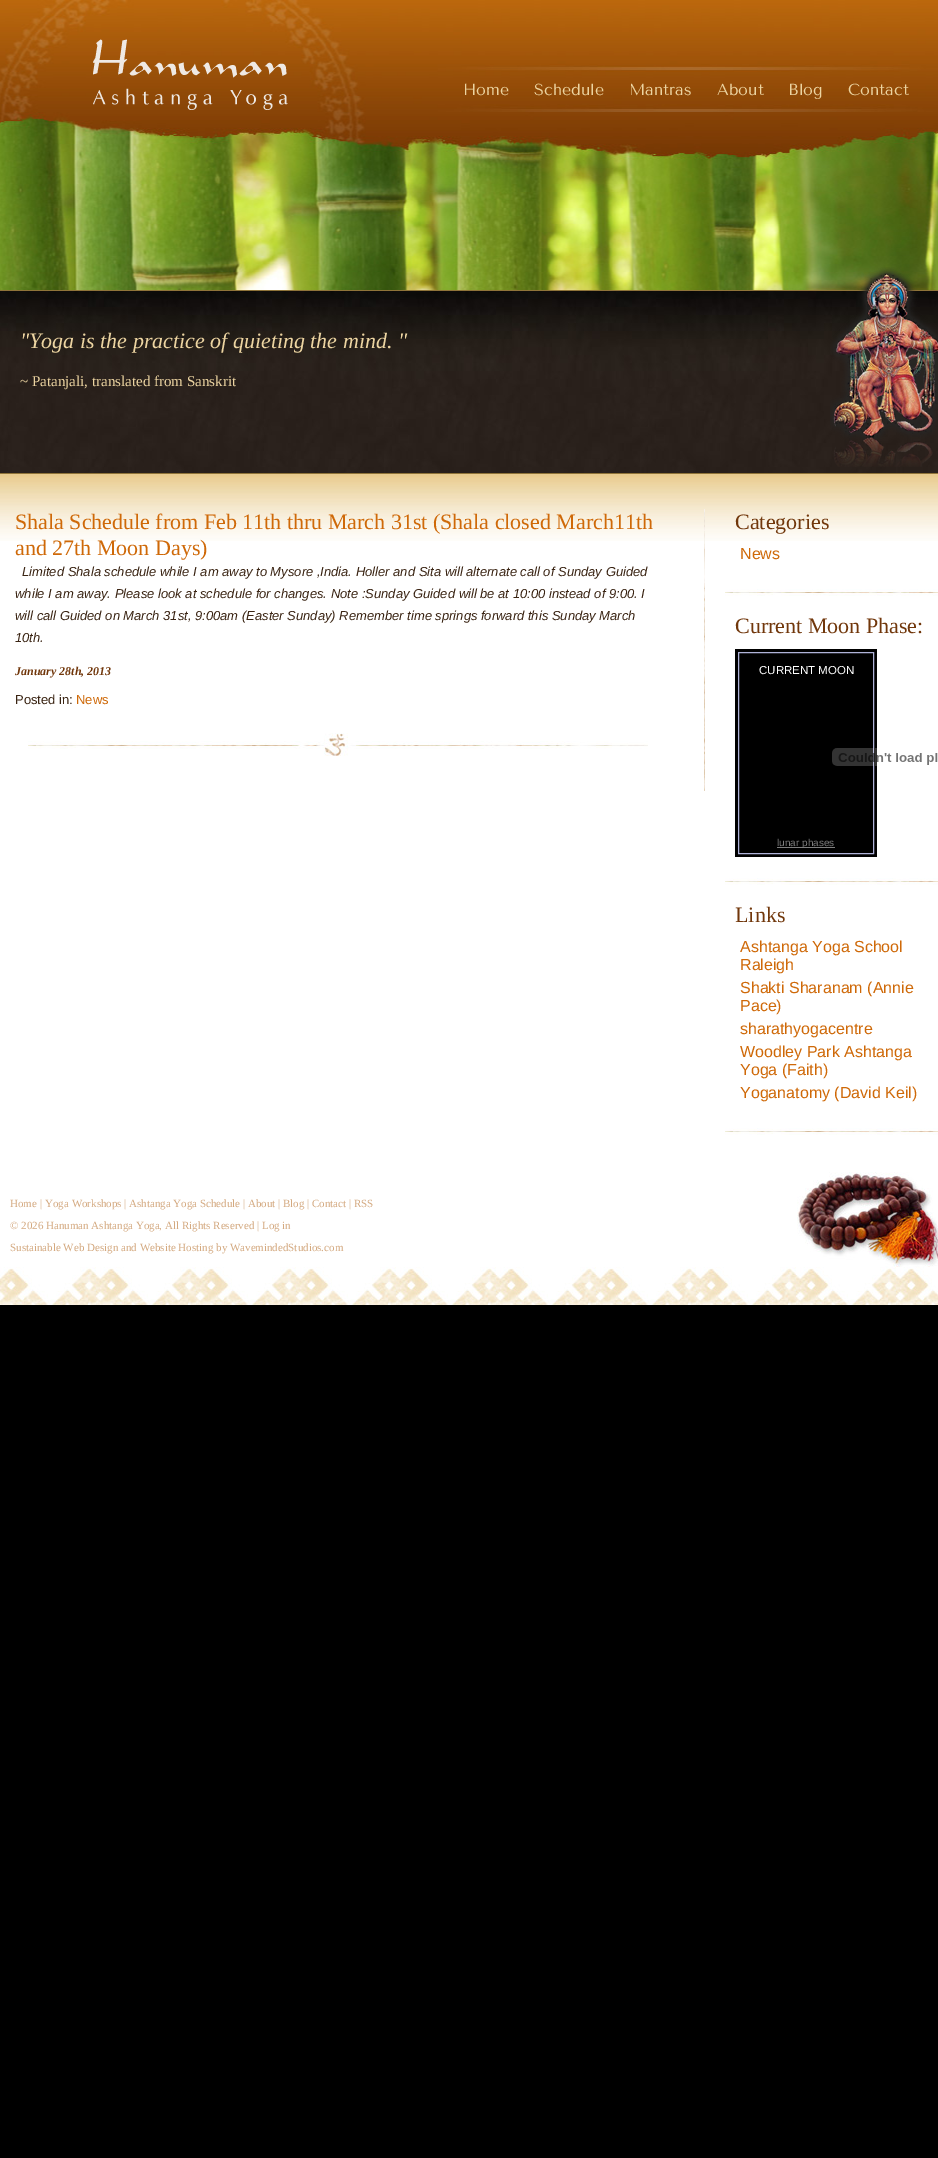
%!PS-Adobe-3.0
%%BoundingBox: 0 0 938 2158
%%LanguageLevel: 3
%%Pages: 1
%%EndComments
%%BeginProlog
/setink { dup -16 bitshift 255 div exch dup -8 bitshift 255 and 255 div exch 255 and 255 div setrgbcolor } def
/usefont { [ exch dup neg 0 0 3 -1 roll 0 0 ] selectfont } def
/drawimage { 5 dict begin { /h /w /y /x /name } { exch def } forall
  gsave x y translate w h scale
  w h 8 [w 0 0 h 0 0] name (r) file false 3 colorimage grestore end } def
%%EndProlog
%%BeginSetup
<< /PageSize [938 2158] >> setpagedevice
%%EndSetup
%%Page: 1 1
0 2158 translate 1 -1 scale
4 setmiterlimit
16#000000 setink
0 0 938 2158 rectfill
(img1.raw) 0 0 938 290 drawimage
(img2.raw) 93 39 195 71 drawimage
/TenorSans-Regular 16 usefont
16#ECD4A1 setink
[
    [(Home) 463 95]
    [(Schedule) 534 95]
    [(Mantras) 629 95]
    [(About) 717 95]
    [(Blog) 788 95]
    [(Contact) 848 95]
] { aload pop moveto show } forall
(img3.raw) 0 291 938 182 drawimage
16#8F7439 setink
0 290 938 1 rectfill
0 473 938 1 rectfill
/LiberationSerif-Italic 22 usefont
16#ECD4A1 setink
20 348 moveto ("Yoga is the practice of quieting the mind. ") show
/LiberationSerif-Regular 15 usefont
20 386 moveto (~ Patanjali, translated from Sanskrit) show
(img4.raw) 830 267 108 200 drawimage
16#FFFFFF setink
0 541 938 726 rectfill
(img5.raw) 0 474 938 67 drawimage
(img6.raw) 704 509 1 282 drawimage
(img7.raw) 28 733 620 23 drawimage
/LiberationSerif-Regular 22 usefont
16#CF6908 setink
15 529 moveto (Shala Schedule from Feb 11th thru March 31st \(Shala closed March11th) show
15 555 moveto (and 27th Moon Days\)) show
/LiberationSans-Italic 13 usefont
16#3A2413 setink
[
    [(Limited Shala schedule while I am away to Mysore ,India. Holler and Sita will alternate call of Sunday Guided) 22 576]
    [(while I am away. Please look at schedule for changes. Note :Sunday Guided will be at 10:00 instead of 9:00. I) 15 598]
    [(will call Guided on March 31st, 9:00am \(Easter Sunday\) Remember time springs forward this Sunday March) 15 620]
    [(10th.) 15 642]
] { aload pop moveto show } forall
/LiberationSerif-BoldItalic 12 usefont
16#71370B setink
15 675 moveto (January 28th, 2013) show
/LiberationSans-Regular 13 usefont
16#3A2413 setink
15 704 moveto (Posted in:) show
16#CF6908 setink
76 704 moveto (News) show
(img8.raw) 725 589 213 7 drawimage
/LiberationSerif-Regular 22 usefont
16#71370B setink
735 529 moveto (Categories) show
/LiberationSans-Regular 16 usefont
16#CF6908 setink
740 559 moveto (News) show
(img8.raw) 725 878 213 7 drawimage
/LiberationSerif-Regular 22 usefont
16#71370B setink
735 633 moveto (Current Moon Phase:) show
16#000000 setink
735 649 142 208 rectfill
16#AFB2D8 setink
738.5 652.5 135 201 rectstroke
/LiberationSans-Regular 11.5 usefont
16#FFFFFF setink
759 674 moveto (CURRENT MOON) show
(img9.raw) 832 748 106 18 drawimage
16#7F7F7F setink
777 847 58 1 rectfill
/LiberationSans-Regular 10 usefont
777 846 moveto (lunar phases) show
(img8.raw) 725 1128 213 7 drawimage
/LiberationSerif-Regular 22 usefont
16#71370B setink
735 922 moveto (Links) show
/LiberationSans-Regular 16 usefont
16#CF6908 setink
[
    [(Ashtanga Yoga School) 740 952]
    [(Raleigh) 740 970]
    [(Shakti Sharanam \(Annie) 740 993]
    [(Pace\)) 740 1011]
    [(sharathyogacentre) 740 1034]
    [(Woodley Park Ashtanga) 740 1057]
    [(Yoga \(Faith\)) 740 1075]
    [(Yoganatomy \(David Keil\)) 740 1098]
] { aload pop moveto show } forall
(img10.raw) 797 1172 141 95 drawimage
/LiberationSerif-Regular 11 usefont
16#D4A97F setink
[
    [(Home) 10 1207]
    [(| Yoga Workshops) 40 1207]
    [(| Ashtanga Yoga Schedule) 124 1207]
    [(| About) 243 1207]
    [(| Blog) 278 1207]
    [(| Contact) 307 1207]
    [(| RSS) 349 1207]
    [(© 2026 Hanuman Ashtanga Yoga, All Rights Reserved | Log in) 10 1229]
    [(Sustainable Web Design) 10 1251]
    [(and Website Hosting) 121 1251]
    [(by WavemindedStudios.com) 216 1251]
] { aload pop moveto show } forall
(img11.raw) 0 1267 938 38 drawimage
showpage
%%EOF
